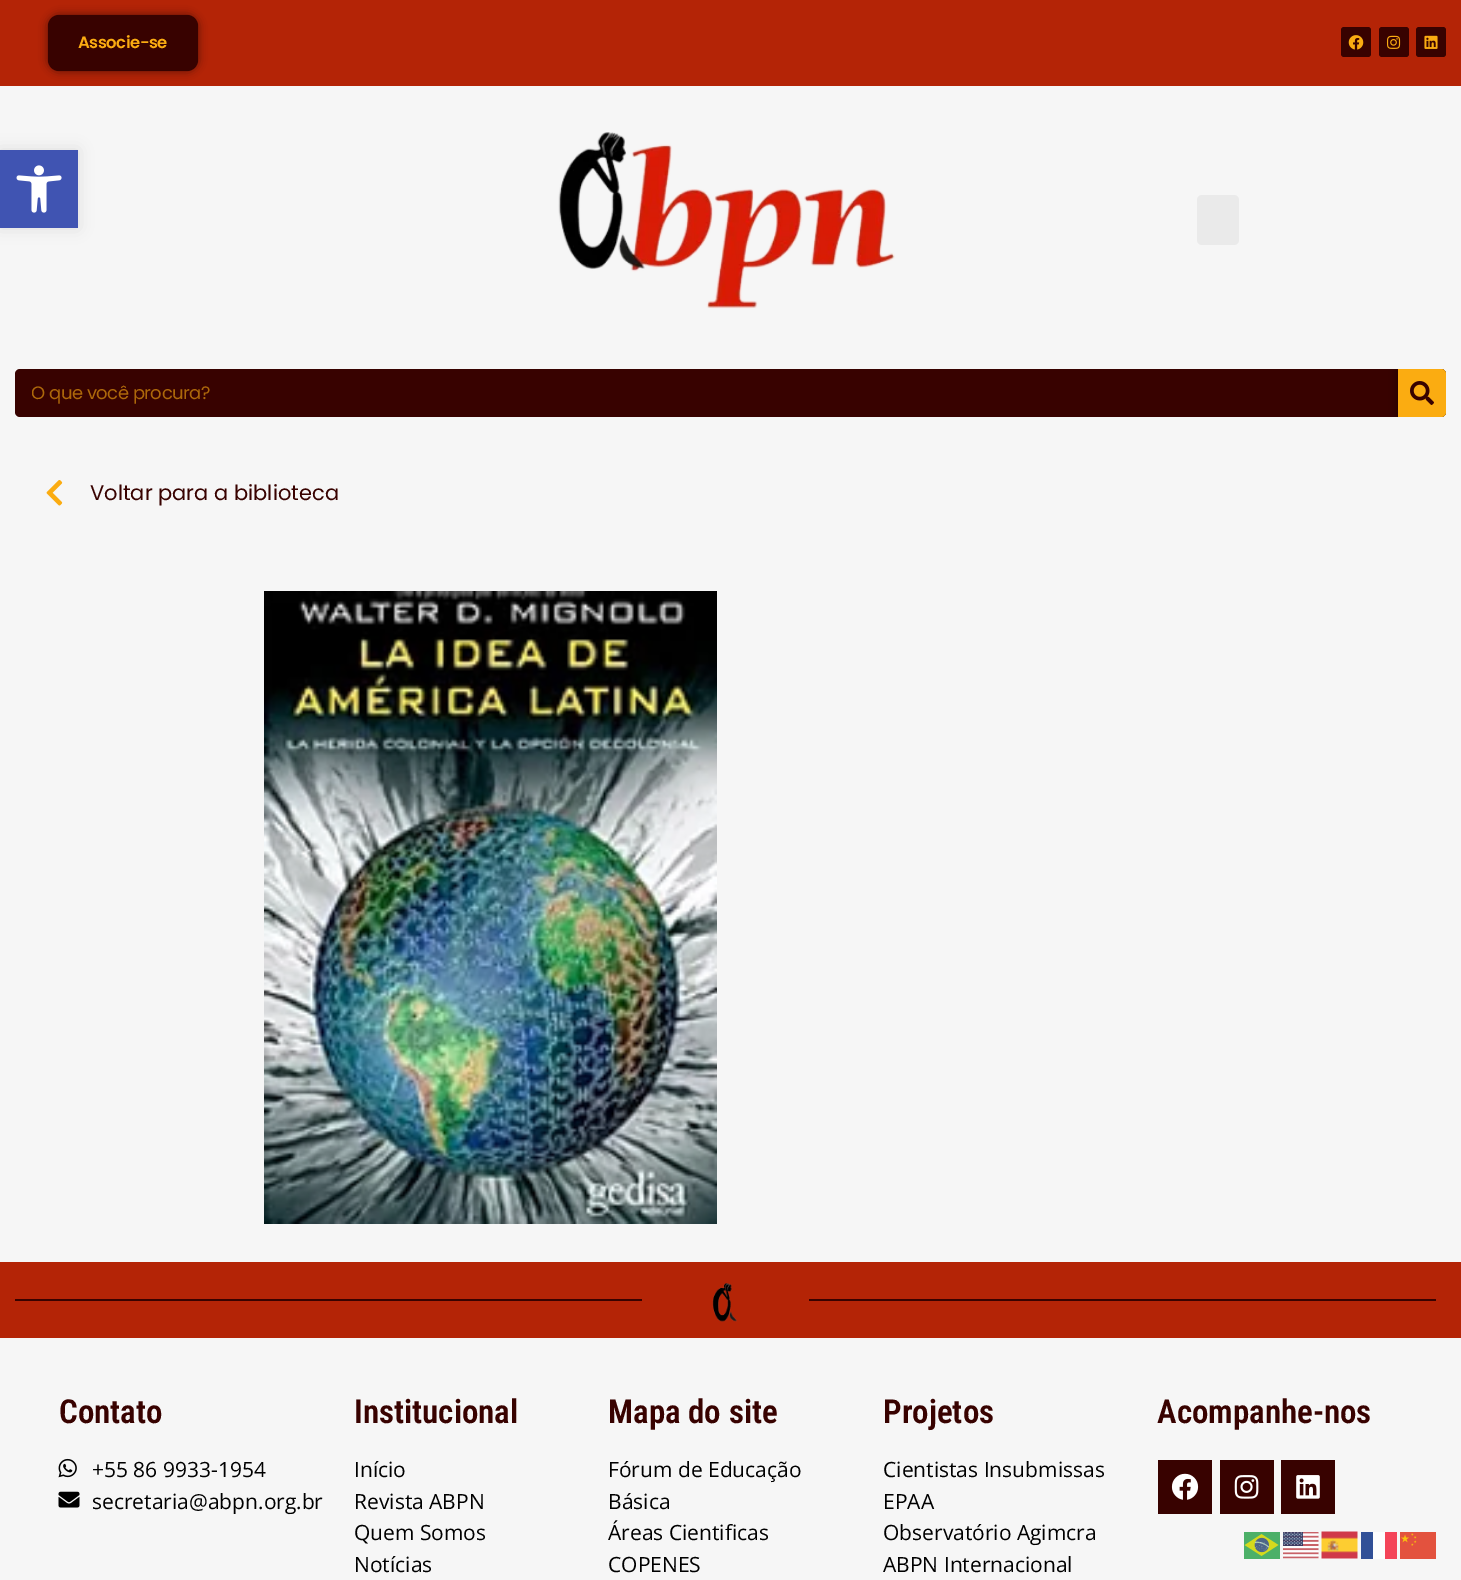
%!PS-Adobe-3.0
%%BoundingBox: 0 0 1461 1580
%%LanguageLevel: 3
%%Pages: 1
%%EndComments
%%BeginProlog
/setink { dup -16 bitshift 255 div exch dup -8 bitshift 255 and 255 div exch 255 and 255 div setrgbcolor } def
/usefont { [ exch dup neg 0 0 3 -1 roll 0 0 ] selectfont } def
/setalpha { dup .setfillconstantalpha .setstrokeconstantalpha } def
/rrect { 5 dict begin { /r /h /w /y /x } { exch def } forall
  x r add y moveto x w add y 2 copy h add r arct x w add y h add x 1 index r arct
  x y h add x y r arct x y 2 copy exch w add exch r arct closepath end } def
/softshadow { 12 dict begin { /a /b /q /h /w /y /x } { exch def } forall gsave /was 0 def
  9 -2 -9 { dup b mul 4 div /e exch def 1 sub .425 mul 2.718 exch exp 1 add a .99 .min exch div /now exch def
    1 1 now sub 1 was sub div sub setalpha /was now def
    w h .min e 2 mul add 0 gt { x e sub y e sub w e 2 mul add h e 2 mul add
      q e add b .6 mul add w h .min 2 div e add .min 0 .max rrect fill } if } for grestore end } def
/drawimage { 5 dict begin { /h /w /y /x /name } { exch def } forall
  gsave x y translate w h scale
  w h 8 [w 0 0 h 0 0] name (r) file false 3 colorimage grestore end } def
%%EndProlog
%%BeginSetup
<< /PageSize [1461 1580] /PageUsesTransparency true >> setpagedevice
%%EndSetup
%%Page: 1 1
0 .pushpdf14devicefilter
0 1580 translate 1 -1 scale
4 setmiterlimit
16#B42406 setink
0 0 1461 1580 rectfill
16#000000 setink
48 15 150 56 11 4.5 0.5 softshadow
16#380200 setink
48 15 150 56 11 rrect fill
/Poppins-SemiBold 16.5 usefont
16#FBAC11 setink
78 48 moveto -0.5 0 (Associe-se) ashow
16#380200 setink
1341 27 30 30 3 rrect fill
(img1.raw) 1348 35 16 15 drawimage
1379 27 30 30 3 rrect fill
(img2.raw) 1386 35 15 14 drawimage
1416 27 30 30 3 rrect fill
(img3.raw) 1424 35 14 14 drawimage
16#F6F6F6 setink
0 86 1461 1176 rectfill
(img4.raw) 558 132 337 177 drawimage
16#EAEAEA setink
1197 195 42 50 5 rrect fill
16#380200 setink
15 369 1431 48 5 rrect fill
gsave
32 380 1332 27 rectclip
/Poppins-Regular 18 usefont
16#AD680A setink
31 399 moveto -0.5 0 (O que você procura?) ashow
grestore
gsave
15 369 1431 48 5 rrect clip newpath
16#000000 setink
1398 369 48 48 0 4.5 0.5 softshadow
grestore
16#FBAC11 setink
1398 369 moveto 1441 369 lineto 1444 369 1446 371 1446 374 curveto 1446 412 lineto 1446 415 1444 417 1441 417 curveto 1398 417 lineto closepath fill
(img5.raw) 1410 381 24 24 drawimage
16#000000 setink
0 150 78 78 0 7.5 0.1 softshadow
16#4054B2 setink
0 150 78 78 rectfill
(img6.raw) 16 165 46 48 drawimage
(img7.raw) 46 480 17 26 drawimage
/Poppins-Regular 21 usefont
16#380200 setink
90 500 moveto (Voltar para a biblioteca) show
(img8.raw) 264 591 453 633 drawimage
15 1299 627 2 rectfill
(img9.raw) 712 1283 25 39 drawimage
809 1299 627 2 rectfill
16#F6F6F6 setink
0 1338 1461 242 rectfill
/RobotoCondensed-SemiBold 33 usefont
16#380200 setink
59 1423 moveto (Contato) show
(img10.raw) 58 1458 19 20 drawimage
/OpenSans-Regular 21 usefont
16#000000 setink
92 1477 moveto (+55 86 9933-1954) show
(img11.raw) 58 1491 22 17 drawimage
92 1509 moveto (secretaria@abpn.org.br) show
/RobotoCondensed-SemiBold 33 usefont
16#380200 setink
354 1423 moveto (Institucional) show
/OpenSans-Regular 21 usefont
16#000000 setink
[
    [(Início) 354 1477]
    [(Revista ABPN) 354 1509]
    [(Quem Somos) 354 1540]
    [(Notícias) 354 1572]
] { aload pop moveto show } forall
/RobotoCondensed-SemiBold 33 usefont
16#380200 setink
608 1423 moveto (Mapa do site) show
/OpenSans-Regular 21 usefont
16#000000 setink
[
    [(Fórum de Educação) 608 1477]
    [(Básica) 608 1509]
    [(Áreas Cientificas) 608 1540]
    [(COPENES) 608 1572]
] { aload pop moveto show } forall
/RobotoCondensed-SemiBold 33 usefont
16#380200 setink
883 1423 moveto (Projetos) show
/OpenSans-Regular 21 usefont
16#000000 setink
[
    [(Cientistas Insubmissas) 883 1477]
    [(EPAA) 883 1509]
    [(Observatório Agimcra) 883 1540]
    [(ABPN Internacional) 883 1572]
] { aload pop moveto show } forall
/RobotoCondensed-SemiBold 33 usefont
16#380200 setink
1157 1423 moveto (Acompanhe-nos) show
1158 1460 54 54 rectfill
(img12.raw) 1171 1473 28 27 drawimage
1220 1460 54 54 rectfill
(img13.raw) 1234 1475 25 24 drawimage
1281 1460 54 54 rectfill
(img14.raw) 1296 1475 24 24 drawimage
(img15.raw) 1244 1532 36 27 drawimage
(img16.raw) 1283 1532 36 27 drawimage
(img17.raw) 1321 1531 37 28 drawimage
[
    [1361 1532 12 27 16#315097]
    [1373 1532 12 27 16#FDFDFD]
    [1385 1532 12 27 16#F44458]
] { aload pop setink rectfill } forall
(img18.raw) 1400 1532 36 27 drawimage
.poppdf14devicefilter showpage
%%EOF
